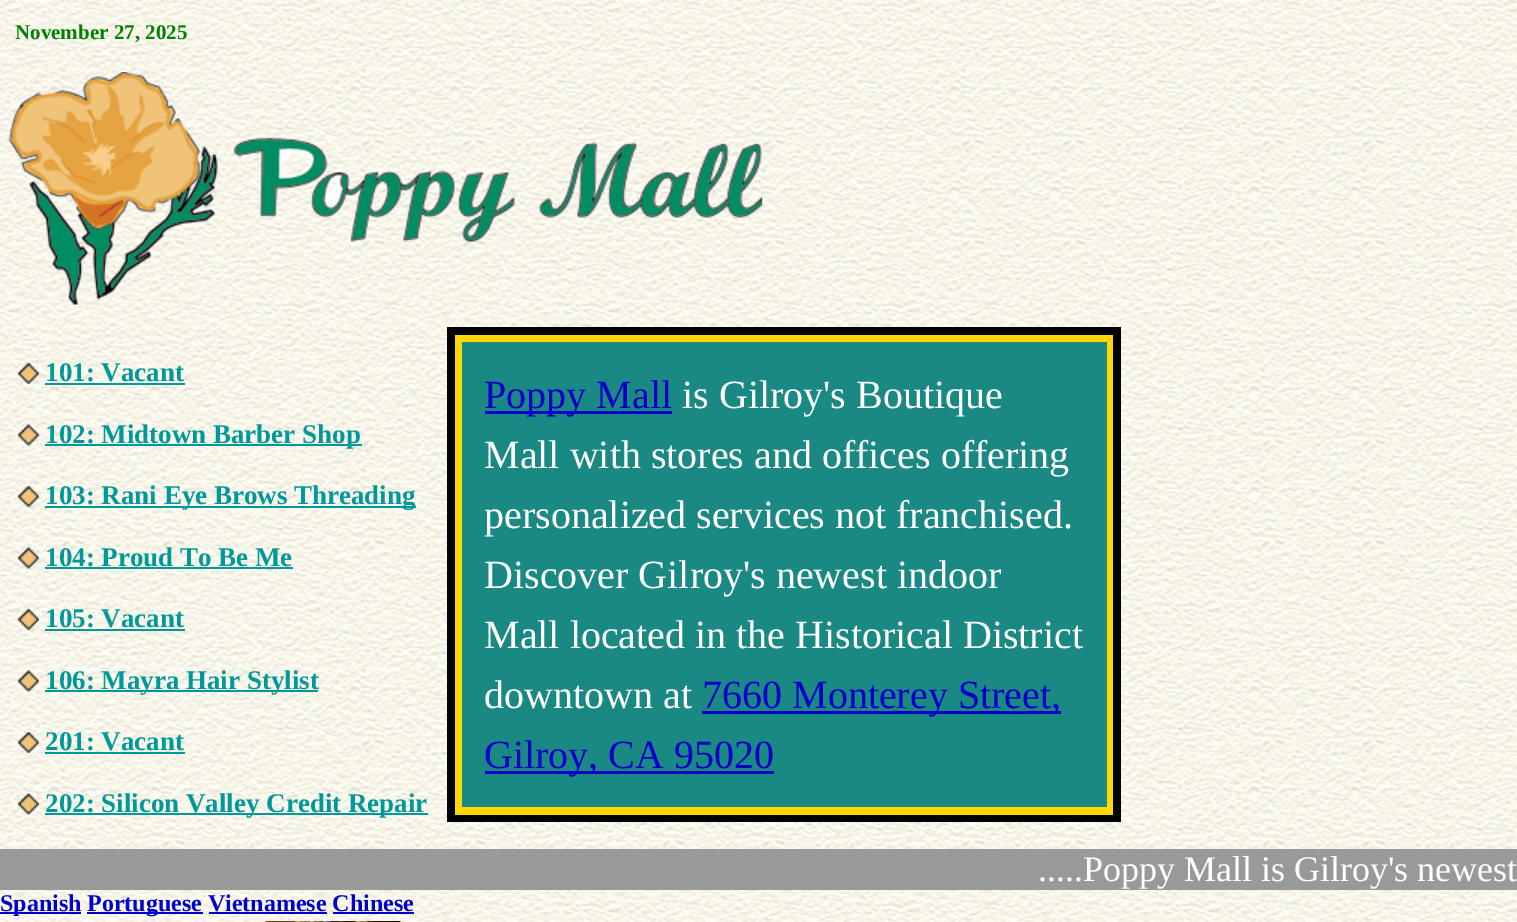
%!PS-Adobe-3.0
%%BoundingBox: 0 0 1517 922
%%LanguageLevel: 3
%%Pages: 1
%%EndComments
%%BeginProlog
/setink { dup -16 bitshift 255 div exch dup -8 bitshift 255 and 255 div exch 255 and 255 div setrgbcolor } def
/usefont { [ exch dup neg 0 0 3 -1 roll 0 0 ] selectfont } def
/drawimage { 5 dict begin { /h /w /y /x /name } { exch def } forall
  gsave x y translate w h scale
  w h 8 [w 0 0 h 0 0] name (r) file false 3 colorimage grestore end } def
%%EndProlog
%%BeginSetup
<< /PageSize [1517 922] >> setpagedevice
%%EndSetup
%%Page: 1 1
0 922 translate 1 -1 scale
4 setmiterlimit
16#FFFFFF setink
0 0 1517 922 rectfill
(img1.raw) 0 0 1517 922 drawimage
/LiberationSerif-Bold 21 usefont
16#008000 setink
15 39 moveto (November 27, 2025) show
(img2.raw) 8 72 755 233 drawimage
(img3.raw) 18 363 21 21 drawimage
/LiberationSerif-Bold 27 usefont
16#009999 setink
45 381 moveto (101: Vacant) show
45 383 140 2 rectfill
(img4.raw) 18 424 21 22 drawimage
45 444 317 2 rectfill
45 443 moveto (102: Midtown Barber Shop) show
(img5.raw) 18 486 21 21 drawimage
45 506 371 2 rectfill
45 504 moveto (103: Rani Eye Brows Threading) show
(img6.raw) 18 547 21 22 drawimage
45 566 moveto (104: Proud To Be Me) show
45 567 248 2 rectfill
(img7.raw) 18 609 21 21 drawimage
45 627 moveto (105: Vacant) show
45 629 140 2 rectfill
(img8.raw) 18 670 21 22 drawimage
45 690 273 2 rectfill
45 689 moveto (106: Mayra Hair Stylist) show
(img9.raw) 18 732 21 21 drawimage
45 750 moveto (201: Vacant) show
45 752 140 2 rectfill
(img10.raw) 18 793 21 22 drawimage
45 813 383 2 rectfill
45 812 moveto (202: Silicon Valley Credit Repair) show
[
    [447 327 674 495 16#000000]
    [455 335 658 480 16#FFD700]
    [462 342 645 465 16#1A8984]
    [485 411 187 3 16#0000CC]
] { aload pop setink rectfill } forall
/LiberationSerif-Regular 40 usefont
484 408 moveto (Poppy Mall) show
16#FFFFFF setink
[
    [(is Gilroy's Boutique) 682 408]
    [(Mall with stores and offices offering) 484 468]
    [(personalized services not franchised.) 484 528]
    [(Discover Gilroy's newest indoor) 484 588]
    [(Mall located in the Historical District) 484 648]
    [(downtown at) 484 708]
] { aload pop moveto show } forall
16#0000CC setink
702 711 359 3 rectfill
702 708 moveto (7660 Monterey Street,) show
485 771 289 3 rectfill
484 768 moveto (Gilroy, CA 95020) show
16#999999 setink
0 849 1517 41 rectfill
/LiberationSerif-Regular 36 usefont
16#FFFFFF setink
1038 881 moveto (.....Poppy Mall is Gilroy's newest) show
16#0000CC setink
0 912 81 2 rectfill
/LiberationSerif-Bold 24 usefont
0 911 moveto (Spanish) show
87 912 116 2 rectfill
87 911 moveto (Portuguese Vietnamese Chinese) show
209 912 118 2 rectfill
333 912 81 2 rectfill
(img11.raw) 265 921 136 1 drawimage
showpage
%%EOF
